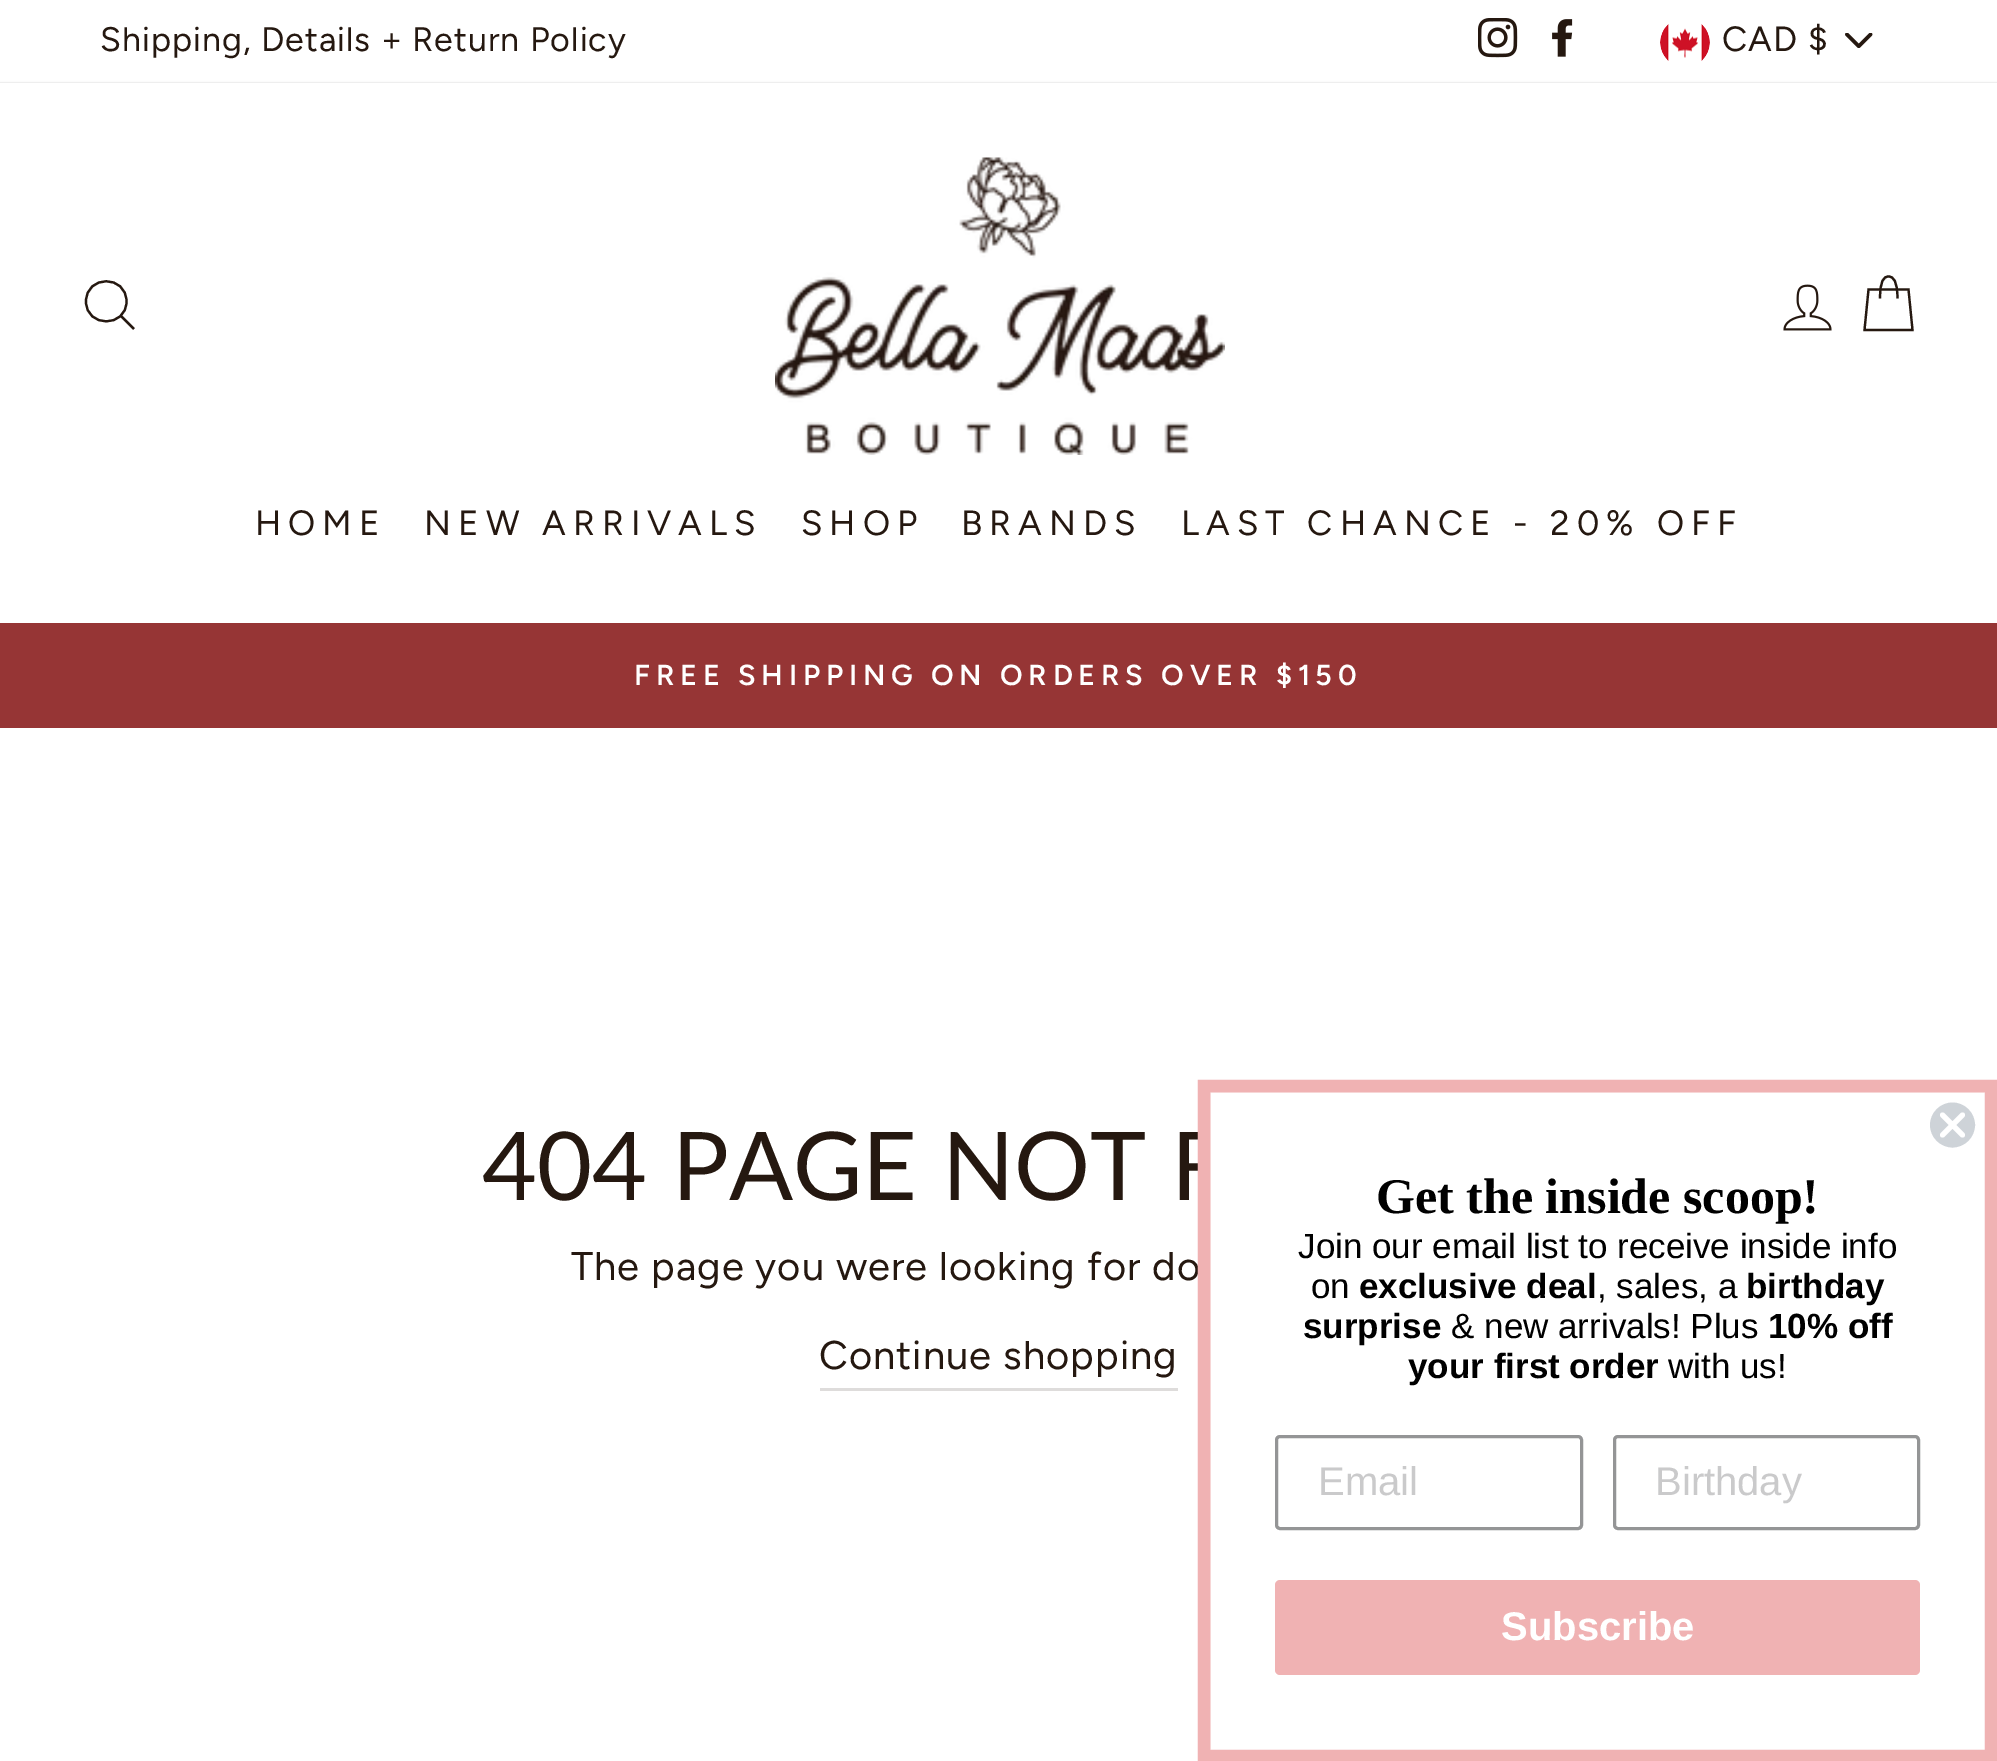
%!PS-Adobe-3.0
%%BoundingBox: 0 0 1997 1761
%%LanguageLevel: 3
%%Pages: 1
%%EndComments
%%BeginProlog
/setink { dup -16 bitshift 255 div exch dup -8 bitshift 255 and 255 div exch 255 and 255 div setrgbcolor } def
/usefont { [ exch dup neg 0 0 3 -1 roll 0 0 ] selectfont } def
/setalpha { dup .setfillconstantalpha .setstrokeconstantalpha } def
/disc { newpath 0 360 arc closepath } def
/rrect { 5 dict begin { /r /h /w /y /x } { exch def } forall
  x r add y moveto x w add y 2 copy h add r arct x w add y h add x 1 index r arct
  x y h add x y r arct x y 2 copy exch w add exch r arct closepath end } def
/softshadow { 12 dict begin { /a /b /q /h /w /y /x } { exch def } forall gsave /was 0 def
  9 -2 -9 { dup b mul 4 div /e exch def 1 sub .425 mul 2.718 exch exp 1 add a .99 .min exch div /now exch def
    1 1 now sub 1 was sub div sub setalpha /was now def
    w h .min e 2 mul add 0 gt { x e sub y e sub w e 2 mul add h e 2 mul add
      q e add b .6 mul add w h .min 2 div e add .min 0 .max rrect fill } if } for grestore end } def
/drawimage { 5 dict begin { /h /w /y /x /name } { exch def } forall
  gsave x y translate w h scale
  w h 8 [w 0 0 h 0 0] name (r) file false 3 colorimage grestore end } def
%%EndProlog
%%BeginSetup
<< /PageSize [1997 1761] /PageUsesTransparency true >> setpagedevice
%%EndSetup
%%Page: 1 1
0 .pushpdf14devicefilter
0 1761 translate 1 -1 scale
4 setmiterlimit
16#FFFFFF setink
0 0 1997 1761 rectfill
/Figtree-Regular 34 usefont
16#251810 setink
100 51 moveto 1 0 (Shipping, Details + Return Policy) ashow
(img1.raw) 1478 18 40 40 drawimage
(img2.raw) 1552 19 21 38 drawimage
(img3.raw) 1845 33 28 15 drawimage
(img4.raw) 1660 24 50 37 drawimage
/Figtree-Regular 35 usefont
1722 51 moveto 1 0 (CAD $) ashow
16#000000 setink
0 83 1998 540 0 1 0.2 softshadow
16#FFFFFF setink
0 83 1997 540 rectfill
16#251810 setink
2.2 setlinewidth
126.5 301.5 moveto 126.5 328 86 328 86 301.5 curveto 86 274.5 126.5 274.5 126.5 301.5 curveto closepath 134 329 moveto 121 316 lineto stroke
(img5.raw) 775 157 450 298 drawimage
(img6.raw) 1783 284 49 47 drawimage
1880 298.5 moveto 1880 281 1883.5 276.5 1888.5 276.5 curveto 1893.5 276.5 1897.5 281 1897.5 298.5 curveto 1868.5 289.5 moveto 1908.5 289.5 lineto 1912.5 330 lineto 1864.5 330 lineto closepath stroke
255 535 moveto 7 0 (HOME) ashow
424 535 moveto 7 0 (NEW ARRIVALS) ashow
801 535 moveto 7 0 (SHOP) ashow
961 535 moveto 7 0 (BRANDS) ashow
1181 535 moveto 7 0 (LAST CHANCE - 20% OFF) ashow
16#963535 setink
0 623 1997 105 rectfill
/Figtree-SemiBold 28.9 usefont
16#FFFFFF setink
634 685 moveto 5.75 0 (FREE SHIPPING ON ORDERS OVER $150) ashow
/Lato-Regular 95 usefont
16#251810 setink
482 1200 moveto (404 PAGE NOT F) show
/Figtree-Regular 40 usefont
571 1280 moveto 1 0 (The page you were looking for do) ashow
16#DEDCDB setink
820 1388 358 3 rectfill
16#251810 setink
819 1369 moveto 1 0 (Continue shopping) ashow
16#FFFFFF setink
1210 1131 12 40 rectfill
16#F0B2B3 setink
12.5 setlinewidth
1204 1086 moveto 1991 1086 lineto 1991 1756 lineto 1204 1756 lineto closepath stroke
16#CED3D8 setink
1952.5 1125 24 disc fill
gsave
1928 1100 50 50 rectclip
16#FFFFFF setink
2.5 setlinewidth
1952.5 1125 24 disc stroke
grestore
16#FFFFFF setink
5 setlinewidth
1 setlinecap
1 setlinejoin
1942.5 1115 moveto 1962.5 1135 lineto 1942.5 1135 moveto 1962.5 1115 lineto closepath stroke
/LiberationSerif-Bold 50 usefont
16#000000 setink
1376 1213 moveto (Get the inside scoop!) show
/LiberationSans-Regular 35 usefont
1298 1258 moveto (Join our email list to receive inside info) show
1311 1298 moveto (on) show
/LiberationSans-Bold 35 usefont
1359 1298 moveto (exclusive deal) show
/LiberationSans-Regular 35 usefont
1597 1298 moveto (, sales, a) show
/LiberationSans-Bold 35 usefont
1746 1298 moveto (birthday) show
1303 1338 moveto (surprise) show
/LiberationSans-Regular 35 usefont
1451 1338 moveto (& new arrivals! Plus) show
/LiberationSans-Bold 35 usefont
1768 1338 moveto (10% off) show
1408 1378 moveto (your first order) show
/LiberationSans-Regular 35 usefont
1668 1378 moveto (with us!) show
16#949596 setink
3 setlinewidth
0 setlinecap
0 setlinejoin
1276.5 1436.5 305 92 3.5 rrect stroke
/LiberationSans-Regular 40 usefont
16#CACACB setink
1318 1495 moveto (Email) show
16#949596 setink
1614.5 1436.5 304 92 3.5 rrect stroke
16#CACACB setink
1655 1495 moveto (Birthday) show
16#F0B2B3 setink
1275 1580 645 95 5 rrect fill
/LiberationSans-Bold 40 usefont
16#FFFFFF setink
1501 1640 moveto (Subscribe) show
.poppdf14devicefilter showpage
%%EOF
